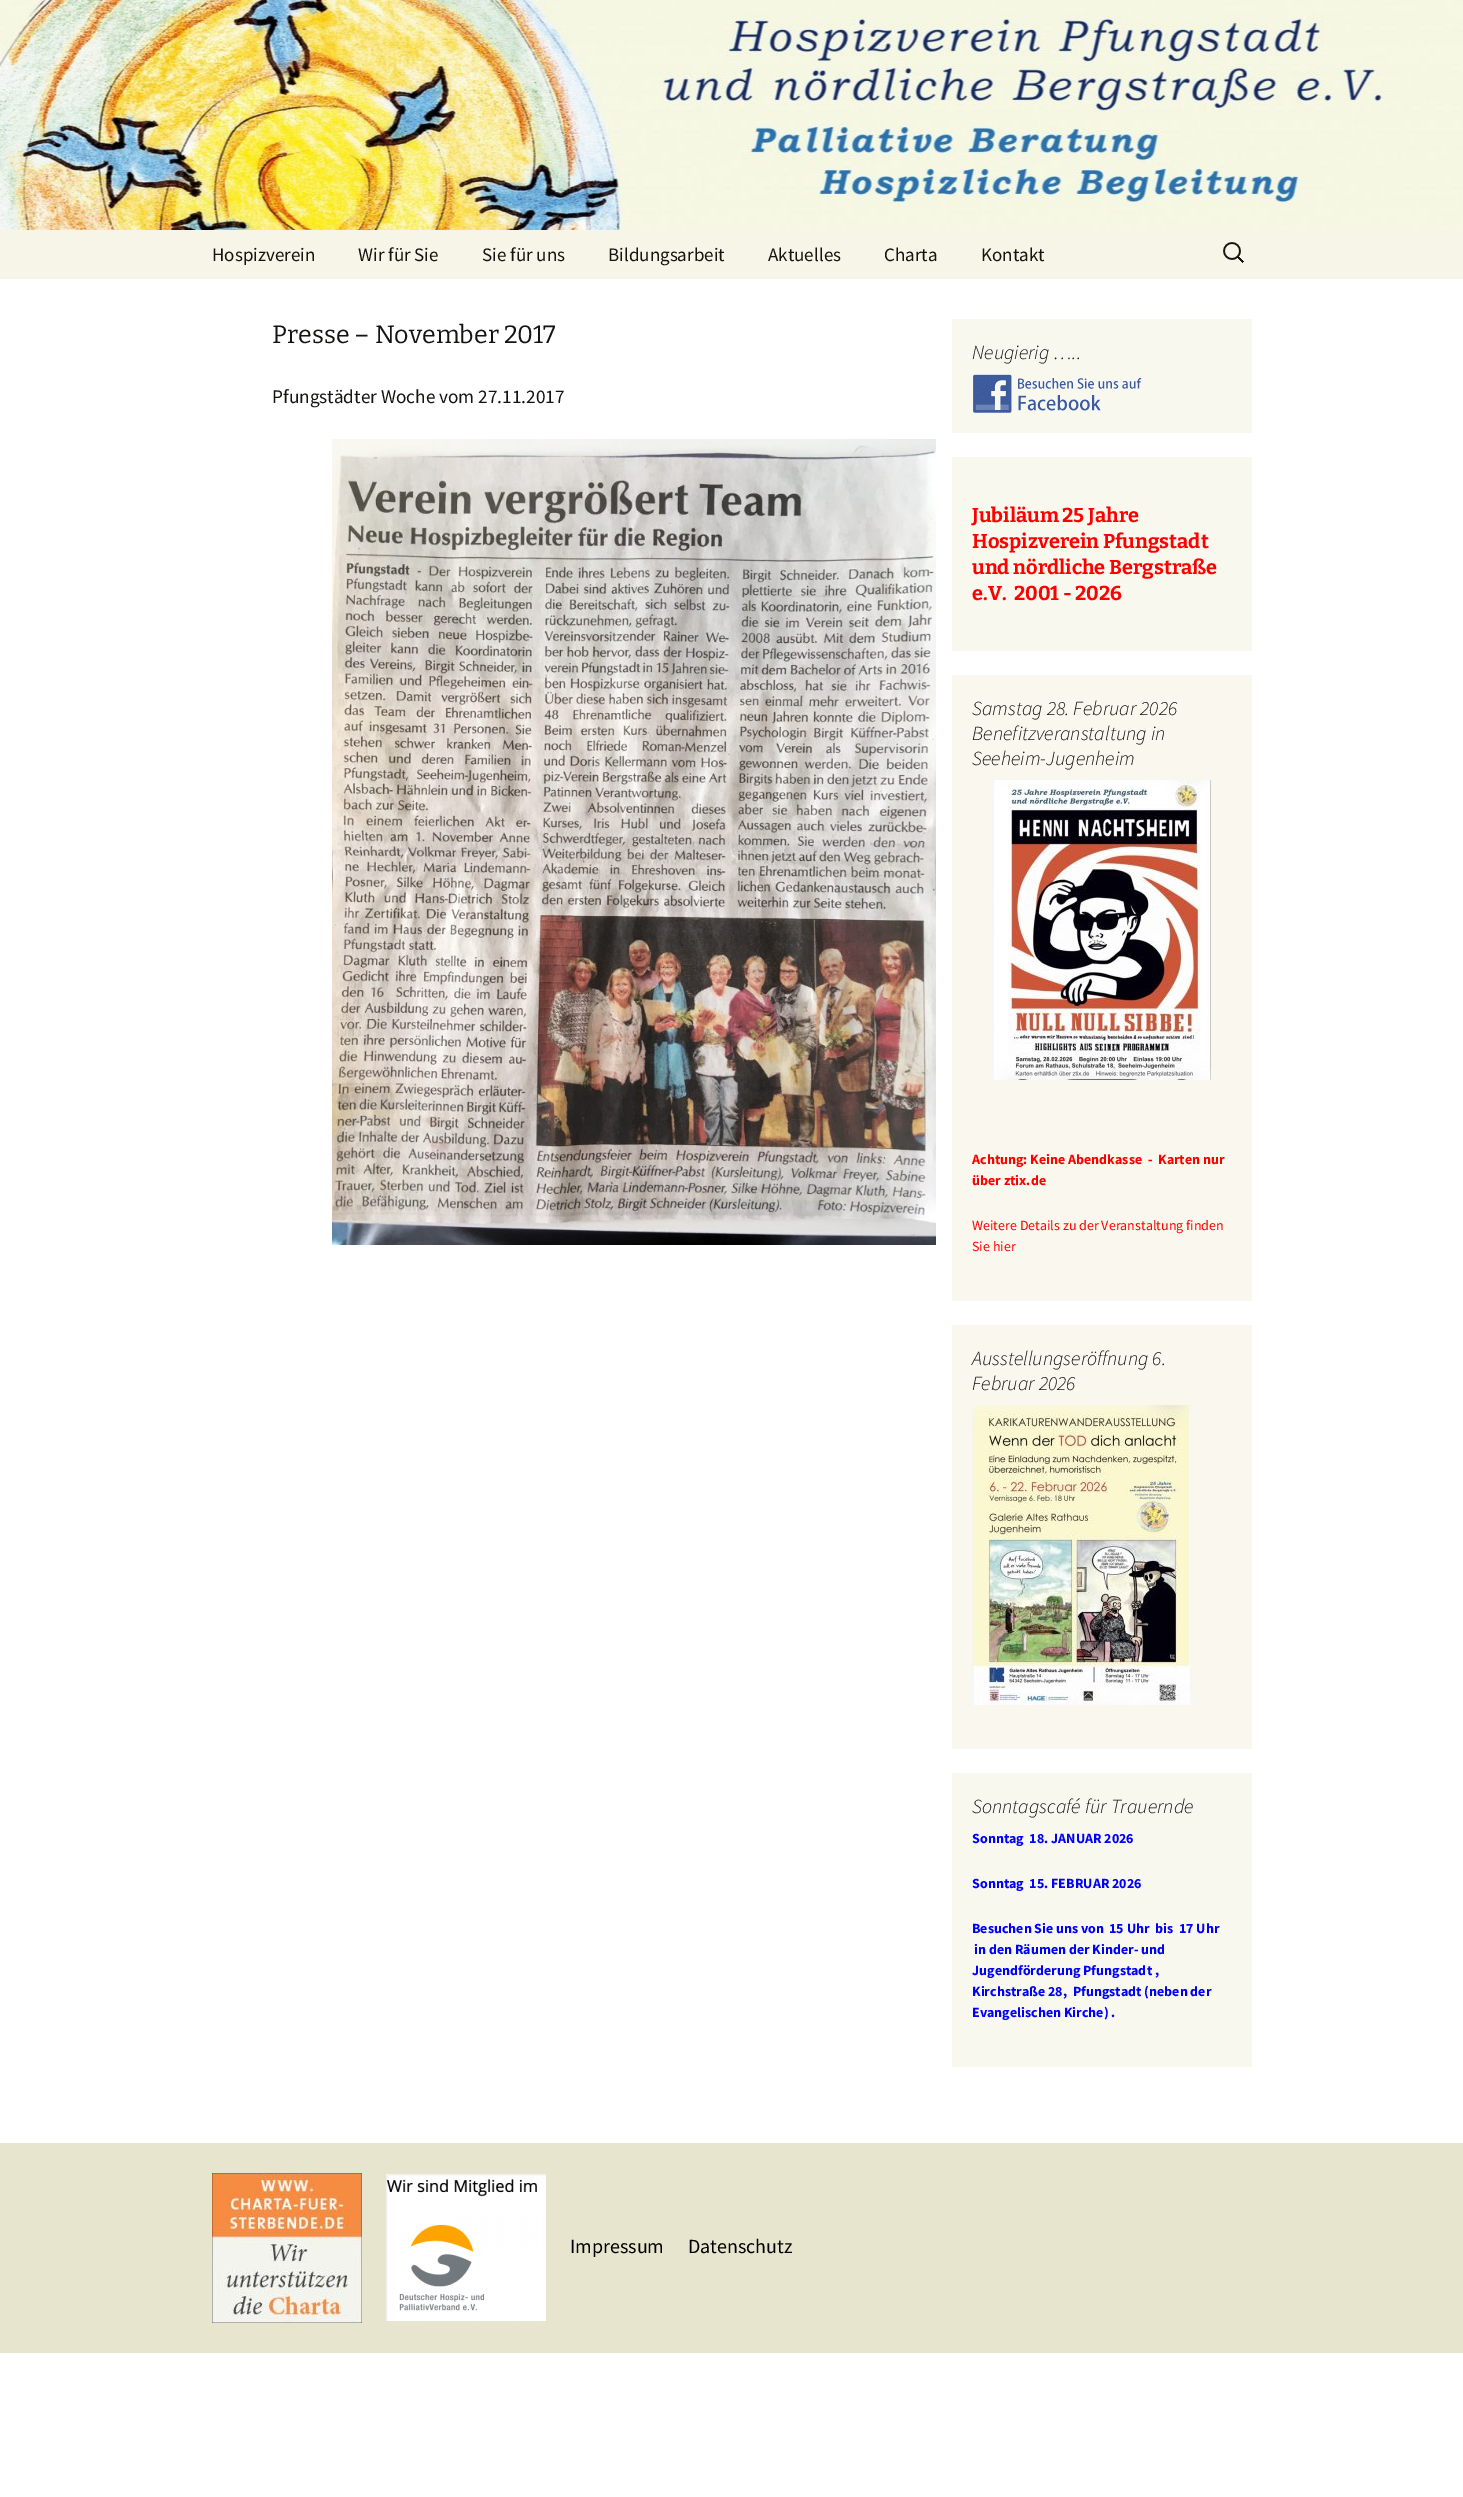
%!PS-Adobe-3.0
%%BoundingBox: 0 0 1463 2497
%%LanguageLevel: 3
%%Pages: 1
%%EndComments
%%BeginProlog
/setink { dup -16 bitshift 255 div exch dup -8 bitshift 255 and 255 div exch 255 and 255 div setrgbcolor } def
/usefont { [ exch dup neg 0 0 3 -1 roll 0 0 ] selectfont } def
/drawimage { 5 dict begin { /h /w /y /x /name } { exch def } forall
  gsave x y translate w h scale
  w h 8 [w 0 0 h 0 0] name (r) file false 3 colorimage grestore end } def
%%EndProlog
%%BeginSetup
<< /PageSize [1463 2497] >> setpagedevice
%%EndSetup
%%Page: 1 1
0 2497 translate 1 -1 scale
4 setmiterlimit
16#FFFFFF setink
0 0 1463 2497 rectfill
(img1.raw) 0 0 1463 230 drawimage
16#F7F5E7 setink
0 230 1463 49 rectfill
/SourceSansPro-Regular 19 usefont
16#141412 setink
[
    [(Hospizverein) 212 261]
    [(Wir für Sie) 358 261]
    [(Sie für uns) 482 261]
    [(Bildungsarbeit) 608 261]
    [(Aktuelles) 768 261]
    [(Charta) 884 261]
    [(Kontakt) 981 261]
] { aload pop moveto show } forall
(img2.raw) 1223 242 21 21 drawimage
/Bitter-Thin 25 usefont
272 343 moveto (Presse – November 2017) show
/SourceSansPro-Regular 19.25 usefont
272 403 moveto (Pfungstädter Woche vom 27.11.2017) show
(img3.raw) 332 439 604 806 drawimage
16#F9F8EE setink
952 319 300 114 rectfill
/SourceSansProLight-LightItalic 20 usefont
16#141412 setink
972 359 moveto (Neugierig …..) show
(img4.raw) 973 374 169 39 drawimage
16#F9F8EE setink
952 457 300 194 rectfill
/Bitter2-Thin 20 usefont
16#FF0000 setink
[
    [(Jubiläum 25 Jahre) 972 522]
    [(Hospizverein Pfungstadt) 972 548]
    [(und nördliche Bergstraße) 972 574]
    [(e.V.  2001 - 2026) 972 600]
] { aload pop moveto show } forall
16#FAF8EE setink
952 675 300 626 rectfill
/SourceSansProLight-LightItalic 20 usefont
16#141412 setink
[
    [(Samstag 28. Februar 2026) 972 715]
    [(Benefitzveranstaltung in) 972 740]
    [(Seeheim-Jugenheim) 972 765]
] { aload pop moveto show } forall
(img5.raw) 992 780 220 300 drawimage
/SourceSansPro-Bold 14 usefont
16#FF0000 setink
972 1164 moveto (Achtung: Keine Abendkasse  -  Karten nur) show
972 1185 moveto (über ztix.de) show
/SourceSansPro-Regular 14 usefont
972 1230 moveto (Weitere Details zu der Veranstaltung finden) show
972 1251 moveto (Sie hier) show
16#FAF8EE setink
952 1325 300 424 rectfill
/SourceSansProLight-LightItalic 20 usefont
16#141412 setink
972 1365 moveto (Ausstellungseröffnung 6.) show
972 1390 moveto (Februar 2026) show
(img6.raw) 972 1405 220 300 drawimage
16#F9F8EE setink
952 1773 300 294 rectfill
16#141412 setink
972 1813 moveto (Sonntagscafé für Trauernde) show
/SourceSansPro-Bold 14 usefont
16#0000FF setink
[
    [(Sonntag  18. JANUAR 2026) 972 1843]
    [(Sonntag  15. FEBRUAR 2026) 972 1888]
    [(Besuchen Sie uns von) 972 1933]
    [(15 Uhr  bis  17 Uhr) 1109 1933]
    [(in den Räumen der Kinder- und) 974 1954]
    [(Jugendförderung Pfungstadt ,) 972 1975]
    [(Kirchstraße 28,  Pfungstadt \(neben der) 972 1996]
    [(Evangelischen Kirche\) .) 972 2017]
] { aload pop moveto show } forall
16#E8E5CE setink
0 2143 1463 210 rectfill
(img7.raw) 212 2173 150 150 drawimage
(img8.raw) 386 2174 160 147 drawimage
/SourceSansPro-Regular 20 usefont
16#000000 setink
570 2253 moveto (Impressum) show
688 2253 moveto (Datenschutz) show
showpage
%%EOF
